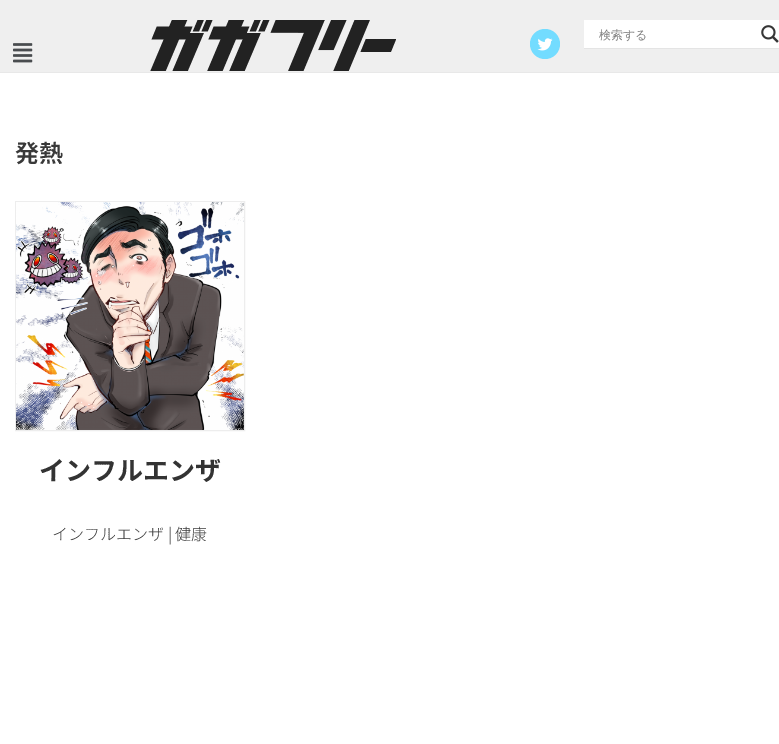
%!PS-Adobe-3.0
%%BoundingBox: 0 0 779 744
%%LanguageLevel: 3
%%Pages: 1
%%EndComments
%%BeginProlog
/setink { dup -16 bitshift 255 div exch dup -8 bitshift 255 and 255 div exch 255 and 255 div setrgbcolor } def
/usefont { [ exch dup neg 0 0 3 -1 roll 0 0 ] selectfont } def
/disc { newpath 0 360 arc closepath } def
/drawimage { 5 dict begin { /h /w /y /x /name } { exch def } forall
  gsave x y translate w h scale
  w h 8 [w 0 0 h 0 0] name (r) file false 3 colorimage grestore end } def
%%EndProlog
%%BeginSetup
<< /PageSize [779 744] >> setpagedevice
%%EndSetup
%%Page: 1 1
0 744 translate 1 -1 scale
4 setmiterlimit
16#FFFFFF setink
0 0 779 744 rectfill
16#EFEFEF setink
0 0 779 72 rectfill
16#E8E8E8 setink
0 72 779 1 rectfill
(img1.raw) 150 20 246 51 drawimage
16#73DCFF setink
545 44 15 disc fill
(img2.raw) 537 38 16 13 drawimage
16#E4E4E4 setink
584 48 195 1 rectfill
16#FFFFFF setink
584 20 195 28 rectfill
/WenQuanYiZenHei-Medium 12 usefont
16#7D7D7D setink
599 39 moveto (検索する) show
(img3.raw) 761 25 18 18 drawimage
(img4.raw) 13 43 20 20 drawimage
/NotoSansJP-SemiBold 24 usefont
16#393939 setink
15 162 moveto (発熱) show
16#EDEDED setink
15.5 201.5 229 229 rectstroke
(img5.raw) 16 202 228 228 drawimage
/NotoSansJP-Bold 26 usefont
16#333333 setink
39 480 moveto (インフルエンザ) show
/NotoSansJP-Light 16 usefont
16#393939 setink
52 540 moveto (インフルエンザ | 健康) show
showpage
%%EOF
